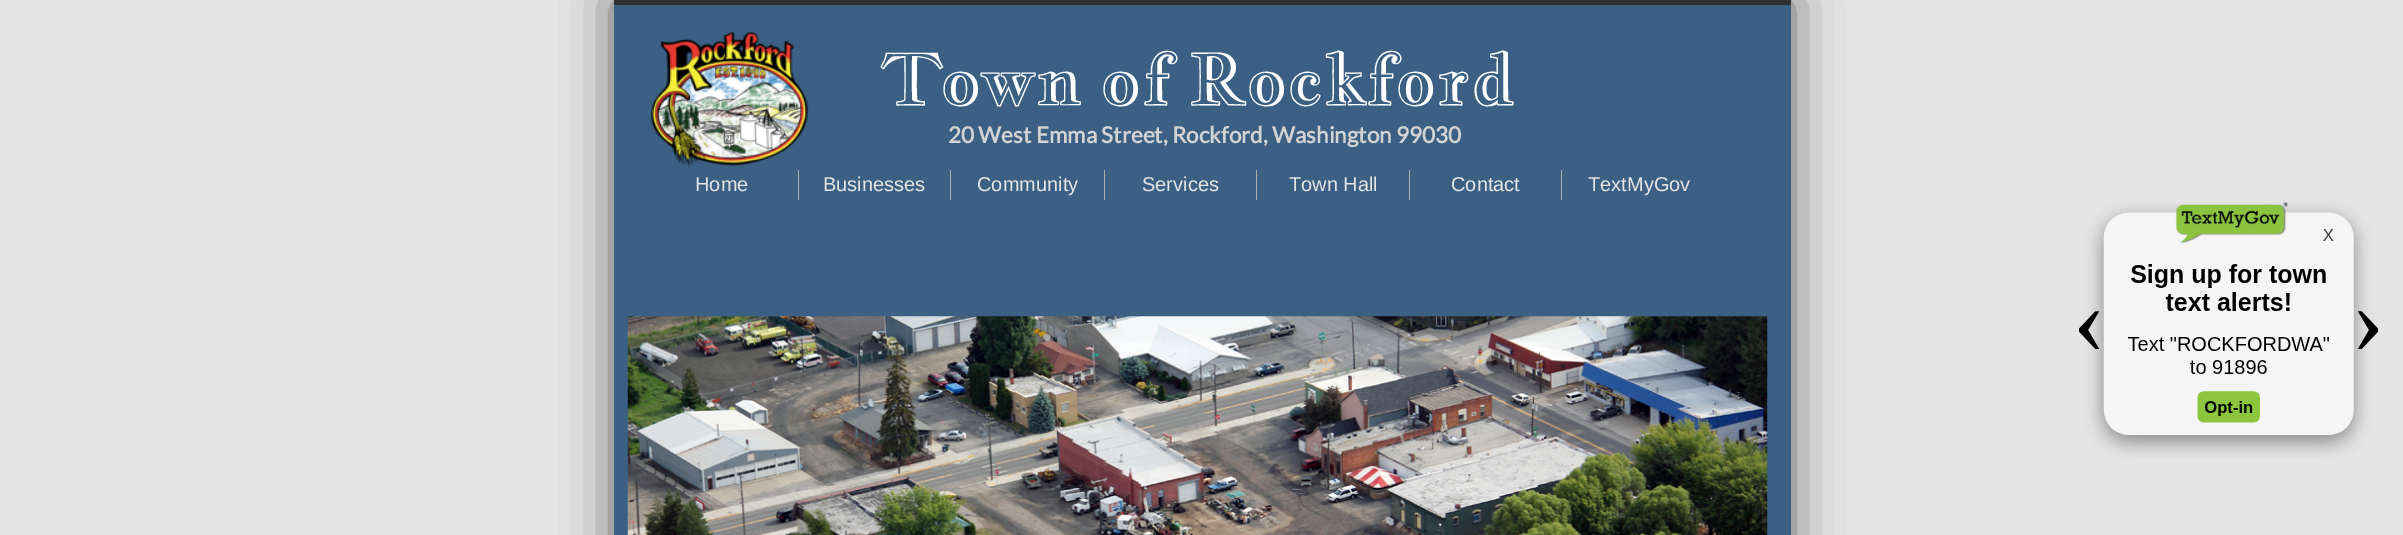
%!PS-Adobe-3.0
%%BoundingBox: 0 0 2403 535
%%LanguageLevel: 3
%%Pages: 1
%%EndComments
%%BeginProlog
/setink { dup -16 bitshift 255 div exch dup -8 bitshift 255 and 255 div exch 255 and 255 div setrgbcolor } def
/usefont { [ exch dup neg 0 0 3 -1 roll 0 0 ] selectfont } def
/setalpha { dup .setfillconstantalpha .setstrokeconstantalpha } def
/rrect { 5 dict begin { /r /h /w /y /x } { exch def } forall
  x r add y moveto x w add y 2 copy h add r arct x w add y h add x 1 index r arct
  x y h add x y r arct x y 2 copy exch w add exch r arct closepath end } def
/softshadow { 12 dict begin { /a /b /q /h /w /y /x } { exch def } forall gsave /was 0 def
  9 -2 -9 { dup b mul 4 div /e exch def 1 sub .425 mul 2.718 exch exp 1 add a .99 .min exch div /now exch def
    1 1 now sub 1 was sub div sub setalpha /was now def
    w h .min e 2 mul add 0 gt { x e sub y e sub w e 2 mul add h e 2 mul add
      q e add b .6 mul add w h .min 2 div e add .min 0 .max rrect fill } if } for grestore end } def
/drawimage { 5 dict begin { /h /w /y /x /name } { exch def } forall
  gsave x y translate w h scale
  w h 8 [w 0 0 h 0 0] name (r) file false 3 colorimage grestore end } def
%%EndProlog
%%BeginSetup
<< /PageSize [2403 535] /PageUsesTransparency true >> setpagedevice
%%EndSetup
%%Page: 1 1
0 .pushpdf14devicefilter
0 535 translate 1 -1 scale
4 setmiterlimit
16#E5E5E5 setink
0 0 2403 535 rectfill
16#000000 setink
614 0 1177 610 0 25 0.6 softshadow
16#3B6084 setink
614 5 1177 530 rectfill
16#2F2F2F setink
614 0 1177 5 rectfill
(img1.raw) 650 31 159 138 drawimage
/JacquesFrancoisShadow-Regular 70 usefont
16#FFFFFF setink
881 104 moveto (Town of Rockford) show
/Lato-Bold 22.5 usefont
16#D3D3D3 setink
948 143 moveto (20 West Emma Street, Rockford, Washington 99030) show
16#AEAEAE setink
798 170 1 30 rectfill
/LiberationSans-Regular 20 usefont
16#E5E5E5 setink
695 191 moveto (Home) show
16#AEAEAE setink
950 170 1 30 rectfill
16#E5E5E5 setink
823 191 moveto (Businesses) show
16#AEAEAE setink
1104 170 1 30 rectfill
16#E5E5E5 setink
977 191 moveto (Community) show
16#AEAEAE setink
1256 170 1 30 rectfill
16#E5E5E5 setink
1142 191 moveto (Services) show
16#AEAEAE setink
1409 170 1 30 rectfill
16#E5E5E5 setink
1289 191 moveto (Town Hall) show
16#AEAEAE setink
1561 170 1 30 rectfill
16#E5E5E5 setink
1451 191 moveto (Contact) show
1588 191 moveto (TextMyGov) show
(img2.raw) 627 316 1141 219 drawimage
(img3.raw) 2079 202 300 255 drawimage
.poppdf14devicefilter showpage
%%EOF
